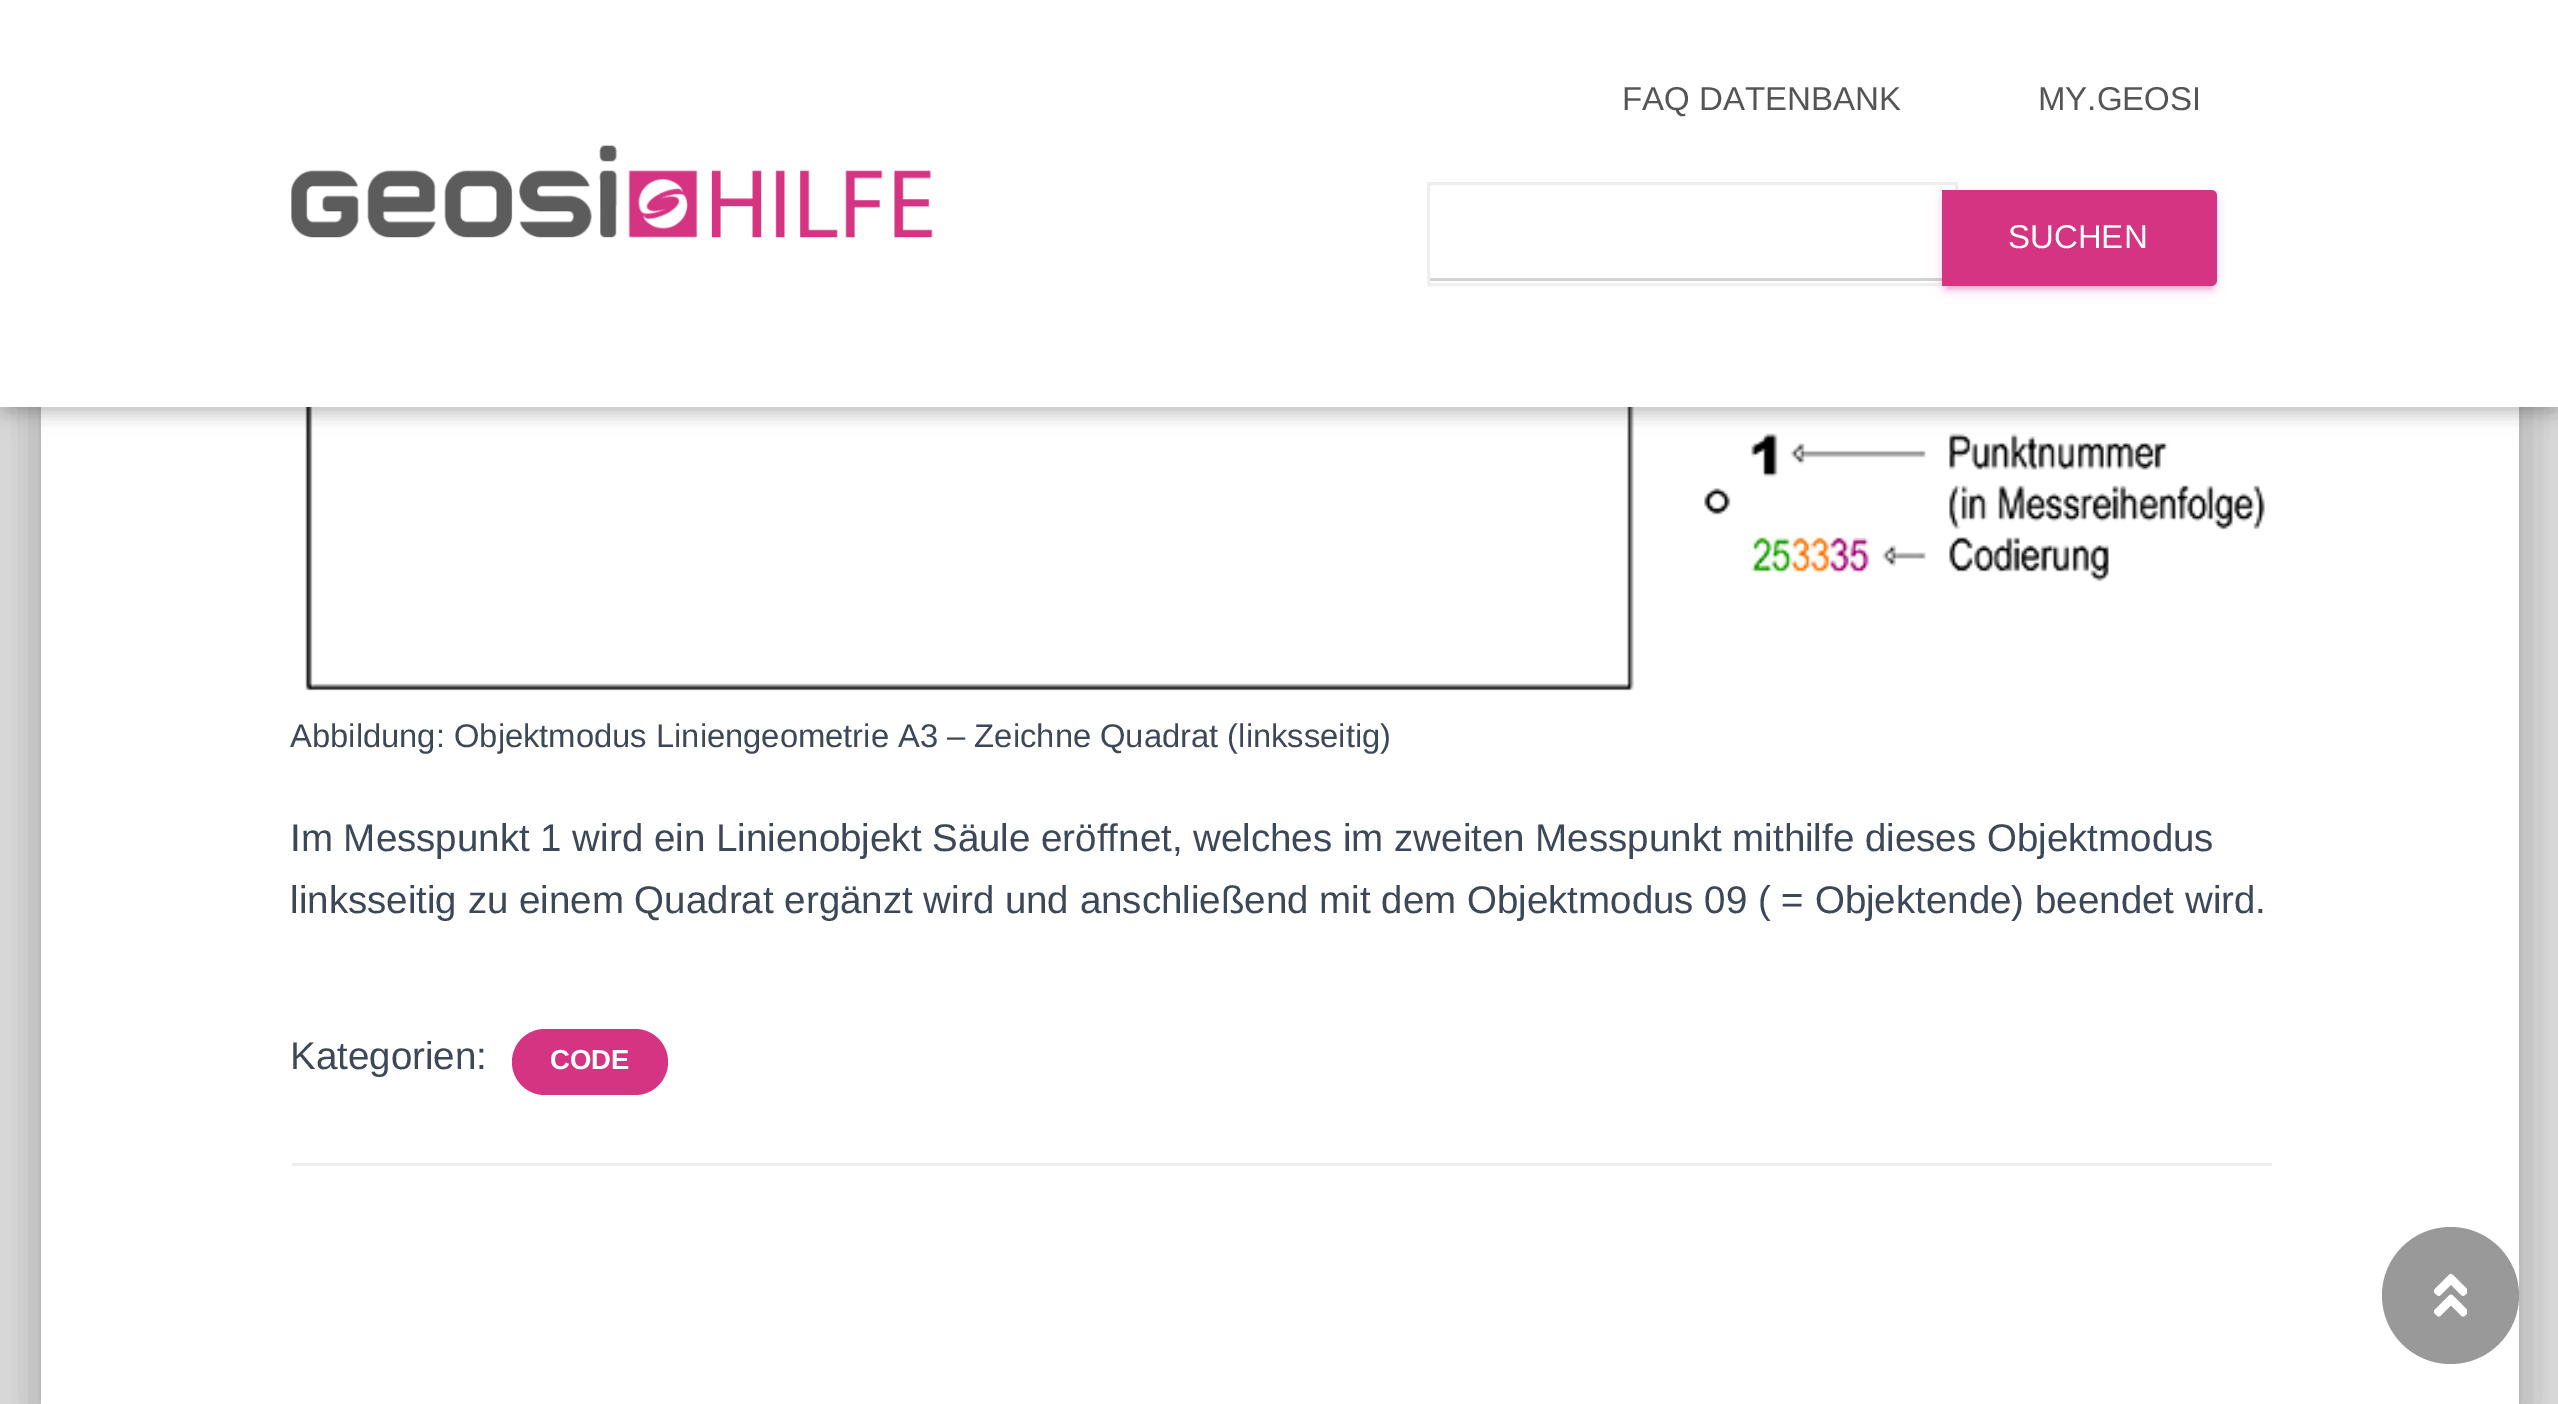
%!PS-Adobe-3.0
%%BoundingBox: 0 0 2558 1404
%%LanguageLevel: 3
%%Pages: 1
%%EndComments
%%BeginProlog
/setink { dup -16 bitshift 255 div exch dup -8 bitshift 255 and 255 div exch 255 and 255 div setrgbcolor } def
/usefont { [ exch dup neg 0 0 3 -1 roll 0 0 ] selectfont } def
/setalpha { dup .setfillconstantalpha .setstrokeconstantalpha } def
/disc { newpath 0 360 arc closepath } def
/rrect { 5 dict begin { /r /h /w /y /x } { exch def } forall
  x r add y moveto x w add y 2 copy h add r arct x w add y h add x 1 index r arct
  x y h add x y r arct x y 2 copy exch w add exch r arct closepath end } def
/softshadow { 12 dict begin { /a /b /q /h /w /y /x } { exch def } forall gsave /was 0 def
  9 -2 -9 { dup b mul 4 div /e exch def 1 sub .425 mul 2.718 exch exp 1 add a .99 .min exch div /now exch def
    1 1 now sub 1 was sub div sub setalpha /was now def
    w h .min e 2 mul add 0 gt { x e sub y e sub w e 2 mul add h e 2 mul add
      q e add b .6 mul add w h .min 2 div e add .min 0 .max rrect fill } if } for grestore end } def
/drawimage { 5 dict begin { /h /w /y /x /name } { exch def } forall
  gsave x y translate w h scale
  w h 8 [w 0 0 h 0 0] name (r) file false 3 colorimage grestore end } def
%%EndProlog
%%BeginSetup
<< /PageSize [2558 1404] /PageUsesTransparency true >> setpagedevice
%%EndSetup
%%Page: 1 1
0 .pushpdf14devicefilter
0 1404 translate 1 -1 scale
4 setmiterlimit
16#E5E5E5 setink
0 0 2558 1404 rectfill
16#000000 setink
55 -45 2450 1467 3 14 0.2 softshadow
28 -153 2505 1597 30 41 0.12 softshadow
36 -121 2489 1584 22 33 0.14 softshadow
16#FFFFFF setink
41 407 2478 997 rectfill
(img2.raw) 305 407 1960 284 drawimage
16#000000 setink
6 17 2549 396 0 7 0.1 softshadow
0 3 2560 407 0 14 0.12 softshadow
17 19 2527 374 0 14 0.42 softshadow
16#FFFFFF setink
0 0 2558 407 rectfill
(img1.raw) 291 145 642 93 drawimage
/LiberationSans-Regular 33 usefont
16#555555 setink
1622 110 moveto (FAQ DATENBANK) show
2038 110 moveto (MY.GEOSI) show
16#D2D2D2 setink
1430 278 512 3 rectfill
16#EFEFEF setink
3 setlinewidth
1428.5 183.5 528 101 rectstroke
16#D43481 setink
1942 193 275 96 6 7 0.12 softshadow
1947 204 264 85 0 1.5 0.2 softshadow
1942 195 275 97 6 3 0.14 softshadow
1942 190 moveto 2211 190 lineto 2214.5 190 2217 192.5 2217 196 curveto 2217 280 lineto 2217 283.5 2214.5 286 2211 286 curveto 1942 286 lineto closepath fill
16#FFFFFF setink
2008 248 moveto (SUCHEN) show
/LiberationSans-Regular 32.75 usefont
16#3C4858 setink
290 747 moveto (Abbildung: Objektmodus Liniengeometrie A3 – Zeichne Quadrat \(linksseitig\)) show
/LiberationSans-Regular 38.5 usefont
[
    [(Im Messpunkt 1 wird ein Linienobjekt Säule eröffnet, welches im zweiten Messpunkt mithilfe dieses Objektmodus) 290 851]
    [(linksseitig zu einem Quadrat ergänzt wird und anschließend mit dem Objektmodus 09 \( = Objektende\) beendet wird.) 290 913]
    [(Kategorien:) 290 1069]
] { aload pop moveto show } forall
16#D43481 setink
512 1029 156 66 33 rrect fill
/LiberationSans-Bold 27.5 usefont
16#FFFFFF setink
550 1069 moveto (CODE) show
16#EEEEEE setink
292 1163 1980 3 rectfill
16#999999 setink
2450.5 1295.5 68.5 disc fill
(img3.raw) 2434 1273 33 44 drawimage
.poppdf14devicefilter showpage
%%EOF
